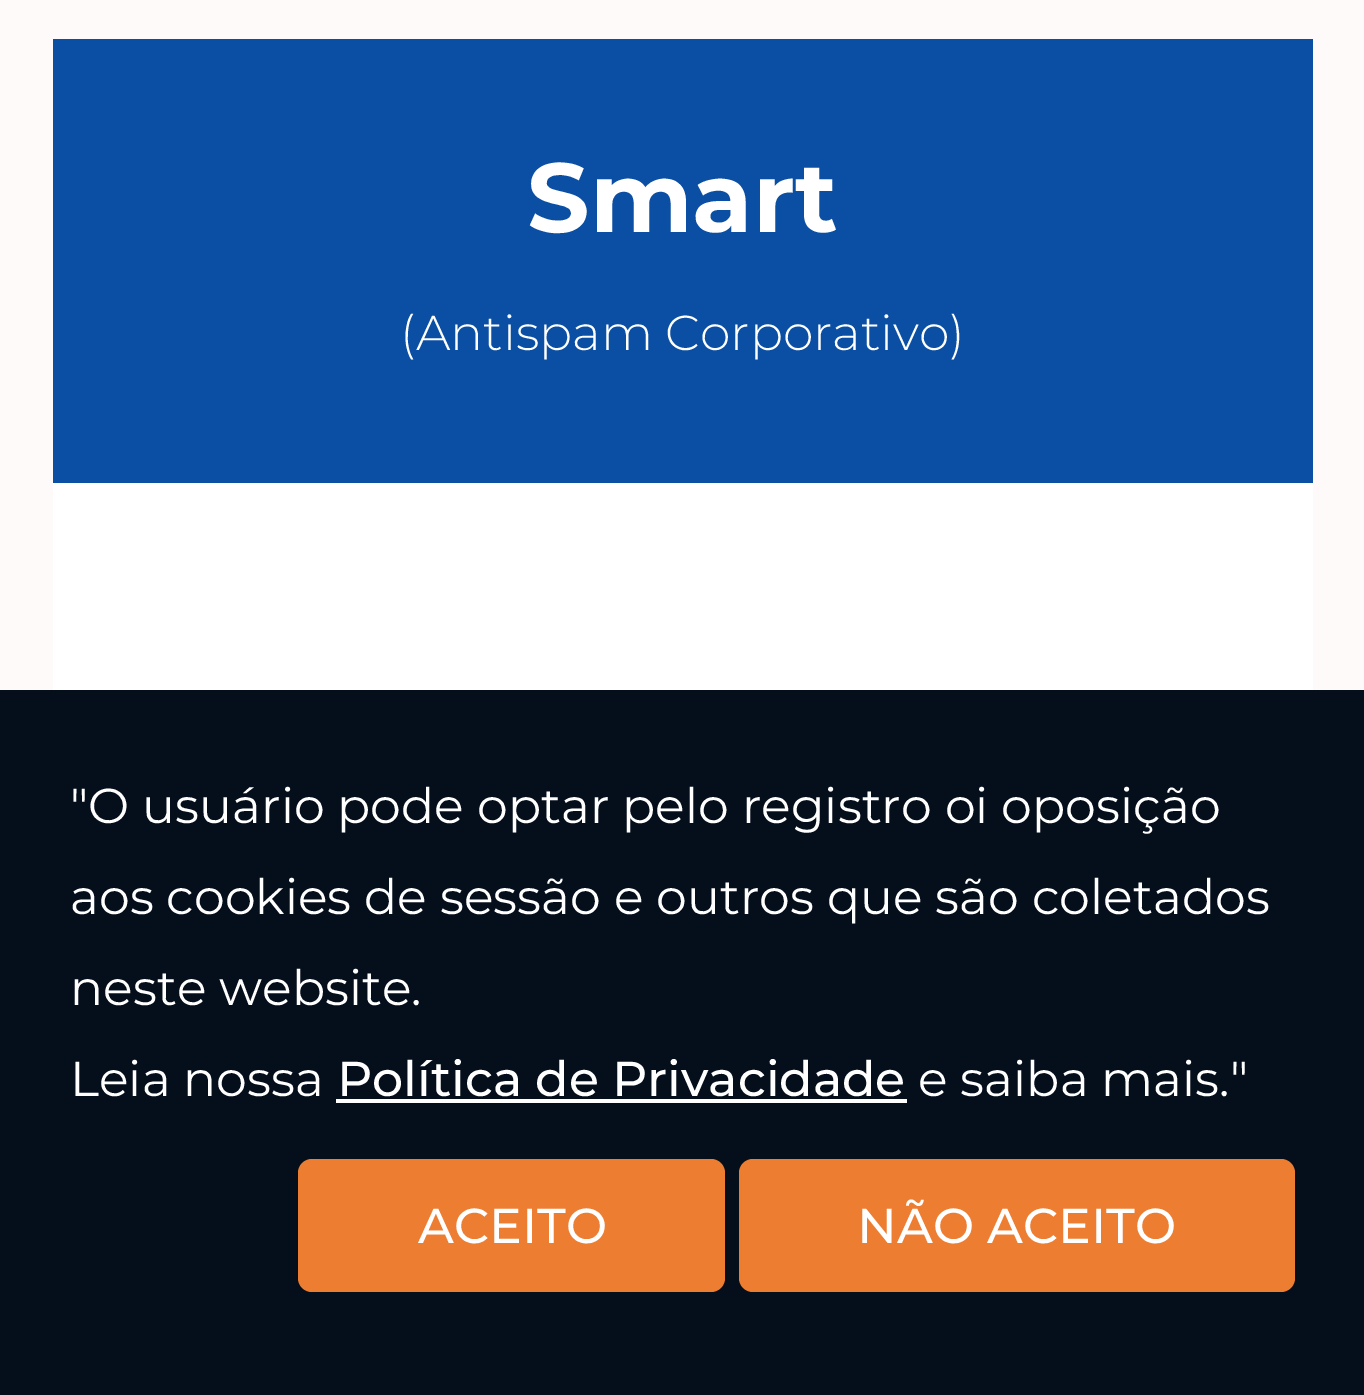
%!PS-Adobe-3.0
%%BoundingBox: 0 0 1364 1395
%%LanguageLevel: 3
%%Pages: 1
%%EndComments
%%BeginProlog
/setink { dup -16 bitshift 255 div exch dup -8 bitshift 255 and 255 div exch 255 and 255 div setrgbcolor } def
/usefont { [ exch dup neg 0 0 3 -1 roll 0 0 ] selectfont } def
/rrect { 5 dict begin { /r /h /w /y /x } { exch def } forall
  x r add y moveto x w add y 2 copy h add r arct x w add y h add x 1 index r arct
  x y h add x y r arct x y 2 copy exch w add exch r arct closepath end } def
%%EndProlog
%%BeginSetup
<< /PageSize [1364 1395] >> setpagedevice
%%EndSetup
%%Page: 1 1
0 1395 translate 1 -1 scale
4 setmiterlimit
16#FEFAFA setink
0 0 1364 1395 rectfill
16#FFFFFF setink
53 483 1260 207 rectfill
16#0A4FA3 setink
53 39 1260 444 rectfill
/Montserrat-Bold 98 usefont
16#FFFFFF setink
527 232 moveto (Smart) show
/Montserrat-Light 49 usefont
400 350 moveto (\(Antispam Corporativo\)) show
16#050F1C setink
0 690 1364 705 rectfill
/Montserrat-Regular 49 usefont
16#FFFFFF setink
[
    [("O usuário pode optar pelo registro oi oposição) 70 823]
    [(aos cookies de sessão e outros que são coletados) 70 914]
    [(neste website.) 70 1005]
    [(Leia nossa) 70 1096]
] { aload pop moveto show } forall
/Montserrat-Medium 49 usefont
337 1096 moveto (Política de Privacidade) show
336 1099 571 4 rectfill
/Montserrat-Regular 49 usefont
918 1096 moveto (e saiba mais.") show
16#ED7D31 setink
298 1159 427 133 14 rrect fill
/Montserrat-Medium 49 usefont
16#FFFFFF setink
418 1243 moveto (ACEITO) show
16#ED7D31 setink
739 1159 556 133 14 rrect fill
16#FFFFFF setink
857 1243 moveto (NÃO ACEITO) show
showpage
%%EOF
